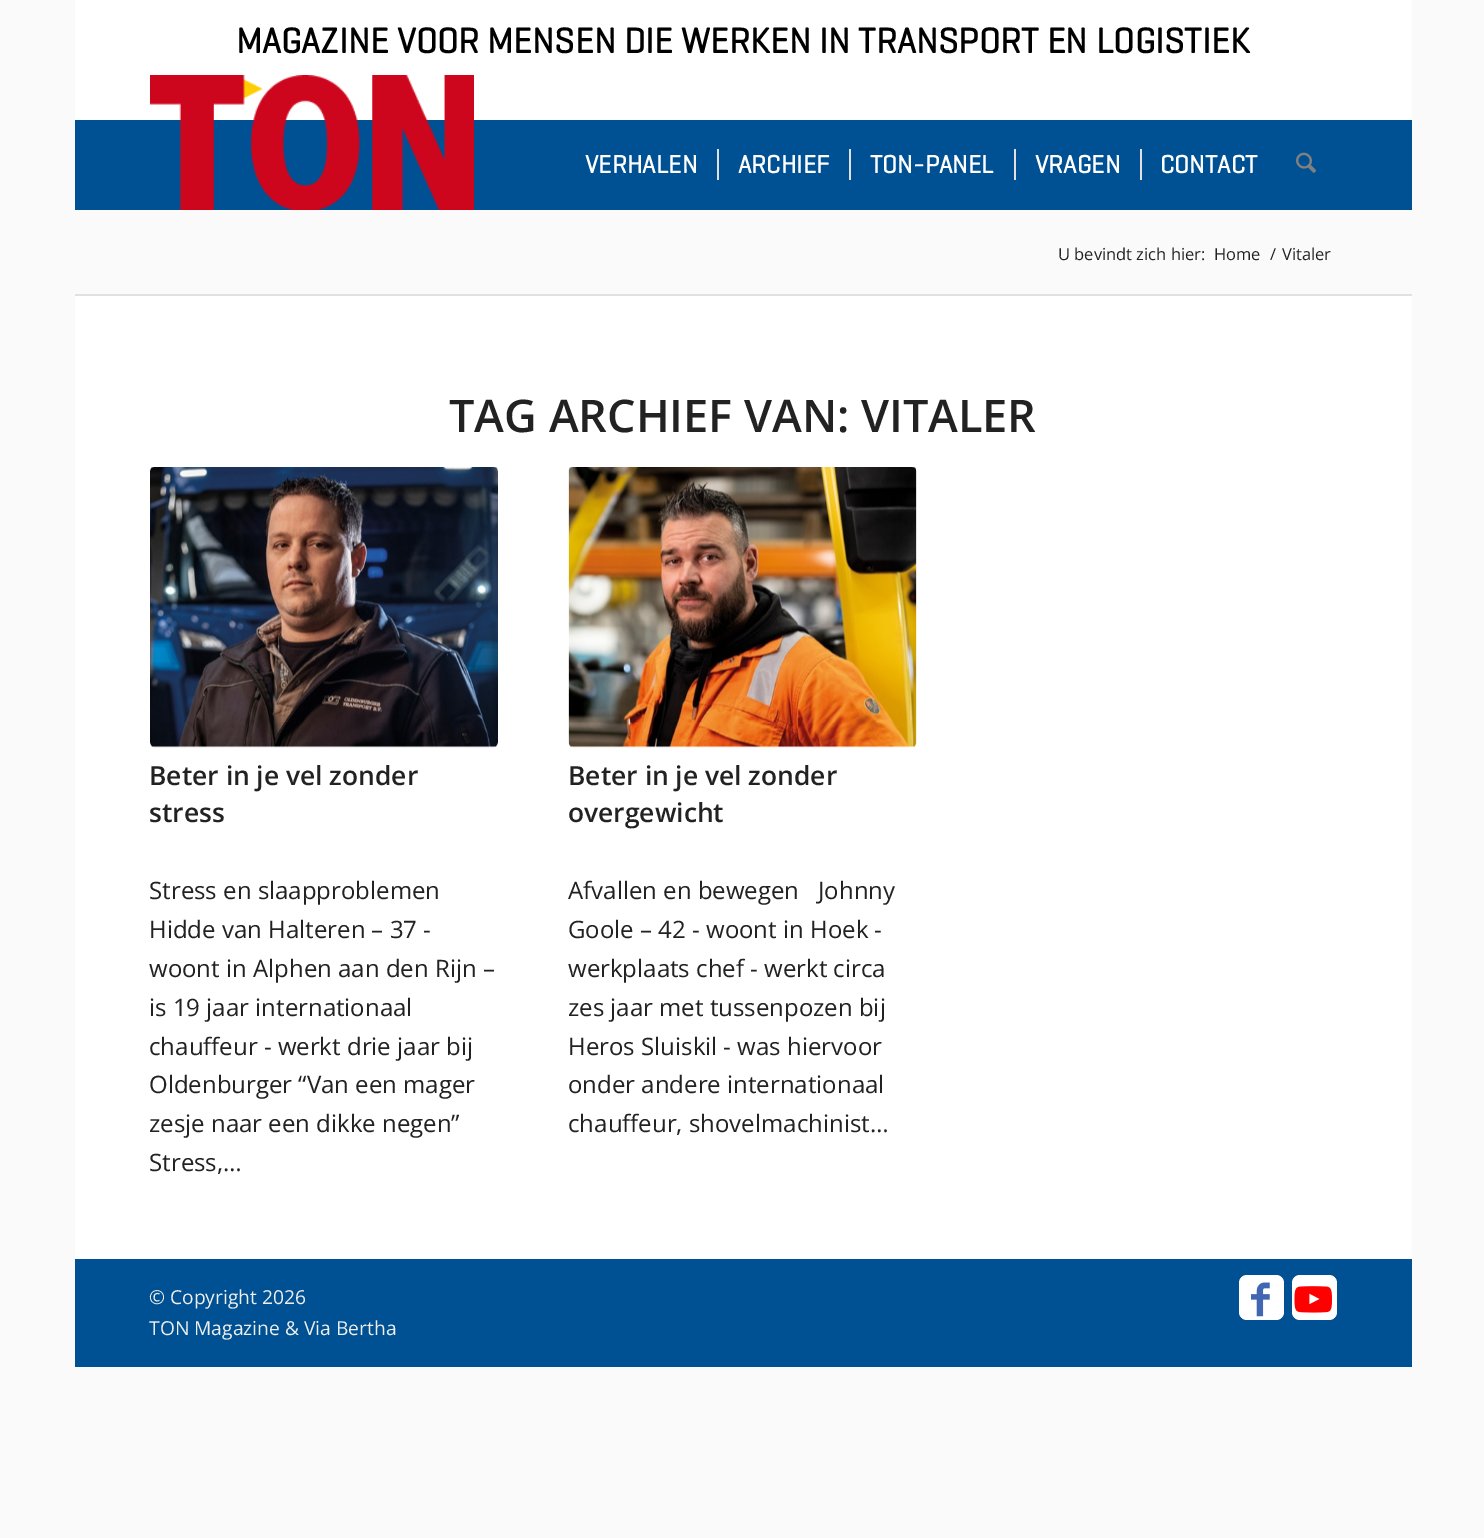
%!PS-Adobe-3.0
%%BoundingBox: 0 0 1484 1538
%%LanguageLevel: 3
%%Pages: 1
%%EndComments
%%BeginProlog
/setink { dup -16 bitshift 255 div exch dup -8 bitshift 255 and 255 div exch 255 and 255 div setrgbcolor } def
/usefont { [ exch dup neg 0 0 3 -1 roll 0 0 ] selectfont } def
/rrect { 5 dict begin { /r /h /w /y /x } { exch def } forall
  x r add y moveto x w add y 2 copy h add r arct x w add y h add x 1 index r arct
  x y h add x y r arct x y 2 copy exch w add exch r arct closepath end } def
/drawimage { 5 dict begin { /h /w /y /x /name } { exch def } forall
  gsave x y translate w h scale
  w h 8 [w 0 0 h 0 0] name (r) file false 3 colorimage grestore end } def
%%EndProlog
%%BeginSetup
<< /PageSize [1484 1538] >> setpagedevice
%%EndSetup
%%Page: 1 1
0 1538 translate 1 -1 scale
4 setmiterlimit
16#FAFAFA setink
0 0 1484 1538 rectfill
16#FFFFFF setink
75 0 1337 120 rectfill
/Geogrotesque-Bold 36 usefont
16#000000 setink
236 53 moveto (MAGAZINE VOOR MENSEN DIE WERKEN IN TRANSPORT EN LOGISTIEK) show
16#005193 setink
75 120 1337 90 rectfill
(img1.raw) 150 75 324 135 drawimage
/Geogrotesque-Bold 25.5 usefont
16#FFFFFF setink
585 173 moveto (VERHALEN) show
738 173 moveto (ARCHIEF) show
16#E1E1E1 setink
717 149 2 31 rectfill
16#FFFFFF setink
870 173 moveto (TON-PANEL) show
16#E1E1E1 setink
849 149 2 31 rectfill
16#FFFFFF setink
1035 173 moveto (VRAGEN) show
16#E1E1E1 setink
1014 149 2 31 rectfill
16#FFFFFF setink
1160 173 moveto (CONTACT) show
16#E1E1E1 setink
1140 149 2 31 rectfill
(img2.raw) 1296 152 21 21 drawimage
16#FFFFFF setink
75 296 1337 963 rectfill
/OpenSans-Regular 16.5 usefont
16#222222 setink
[
    [(U bevindt zich hier:) 1058 260]
    [(Home) 1214 260]
    [(/) 1270 260]
    [(Vitaler) 1282 260]
] { aload pop moveto show } forall
16#E1E1E1 setink
75 294 1337 2 rectfill
/OpenSans-SemiBold 45 usefont
16#222222 setink
449 432 moveto (TAG ARCHIEF VAN: VITALER) show
16#FCFCFC setink
150 467 348 280 5 rrect fill
(img3.raw) 150 467 348 281 drawimage
/OpenSans-SemiBold 26.4 usefont
16#222222 setink
149 785 moveto (Beter in je vel zonder) show
149 822 moveto (stress) show
/OpenSans-Regular 24 usefont
[
    [(Stress en slaapproblemen) 149 899]
    [(Hidde van Halteren – 37 -) 149 938]
    [(woont in Alphen aan den Rijn –) 149 977]
    [(is 19 jaar internationaal) 149 1016]
    [(chauffeur - werkt drie jaar bij) 149 1055]
    [(Oldenburger “Van een mager) 149 1093]
    [(zesje naar een dikke negen”) 149 1132]
    [(Stress,…) 149 1171]
] { aload pop moveto show } forall
16#FCFCFC setink
569 467 348 280 5 rrect fill
(img4.raw) 568 467 349 281 drawimage
/OpenSans-SemiBold 26.4 usefont
16#222222 setink
568 785 moveto (Beter in je vel zonder) show
568 822 moveto (overgewicht) show
/OpenSans-Regular 24 usefont
[
    [(Afvallen en bewegen) 568 899]
    [(Johnny) 818 899]
    [(Goole – 42 - woont in Hoek -) 568 938]
    [(werkplaats chef - werkt circa) 568 977]
    [(zes jaar met tussenpozen bij) 568 1016]
    [(Heros Sluiskil - was hiervoor) 568 1055]
    [(onder andere internationaal) 568 1093]
    [(chauffeur, shovelmachinist…) 568 1132]
] { aload pop moveto show } forall
16#005193 setink
75 1259 1337 108 rectfill
/OpenSans-Regular 19.25 usefont
16#EEEEEE setink
149 1304 moveto (© Copyright 2026) show
149 1335 moveto (TON Magazine & Via Bertha) show
16#FFFFFF setink
1239 1275 45 45 8 rrect fill
(img5.raw) 1251 1282 19 35 drawimage
1292 1275 45 45 8 rrect fill
(img6.raw) 1294 1286 38 27 drawimage
showpage
%%EOF
